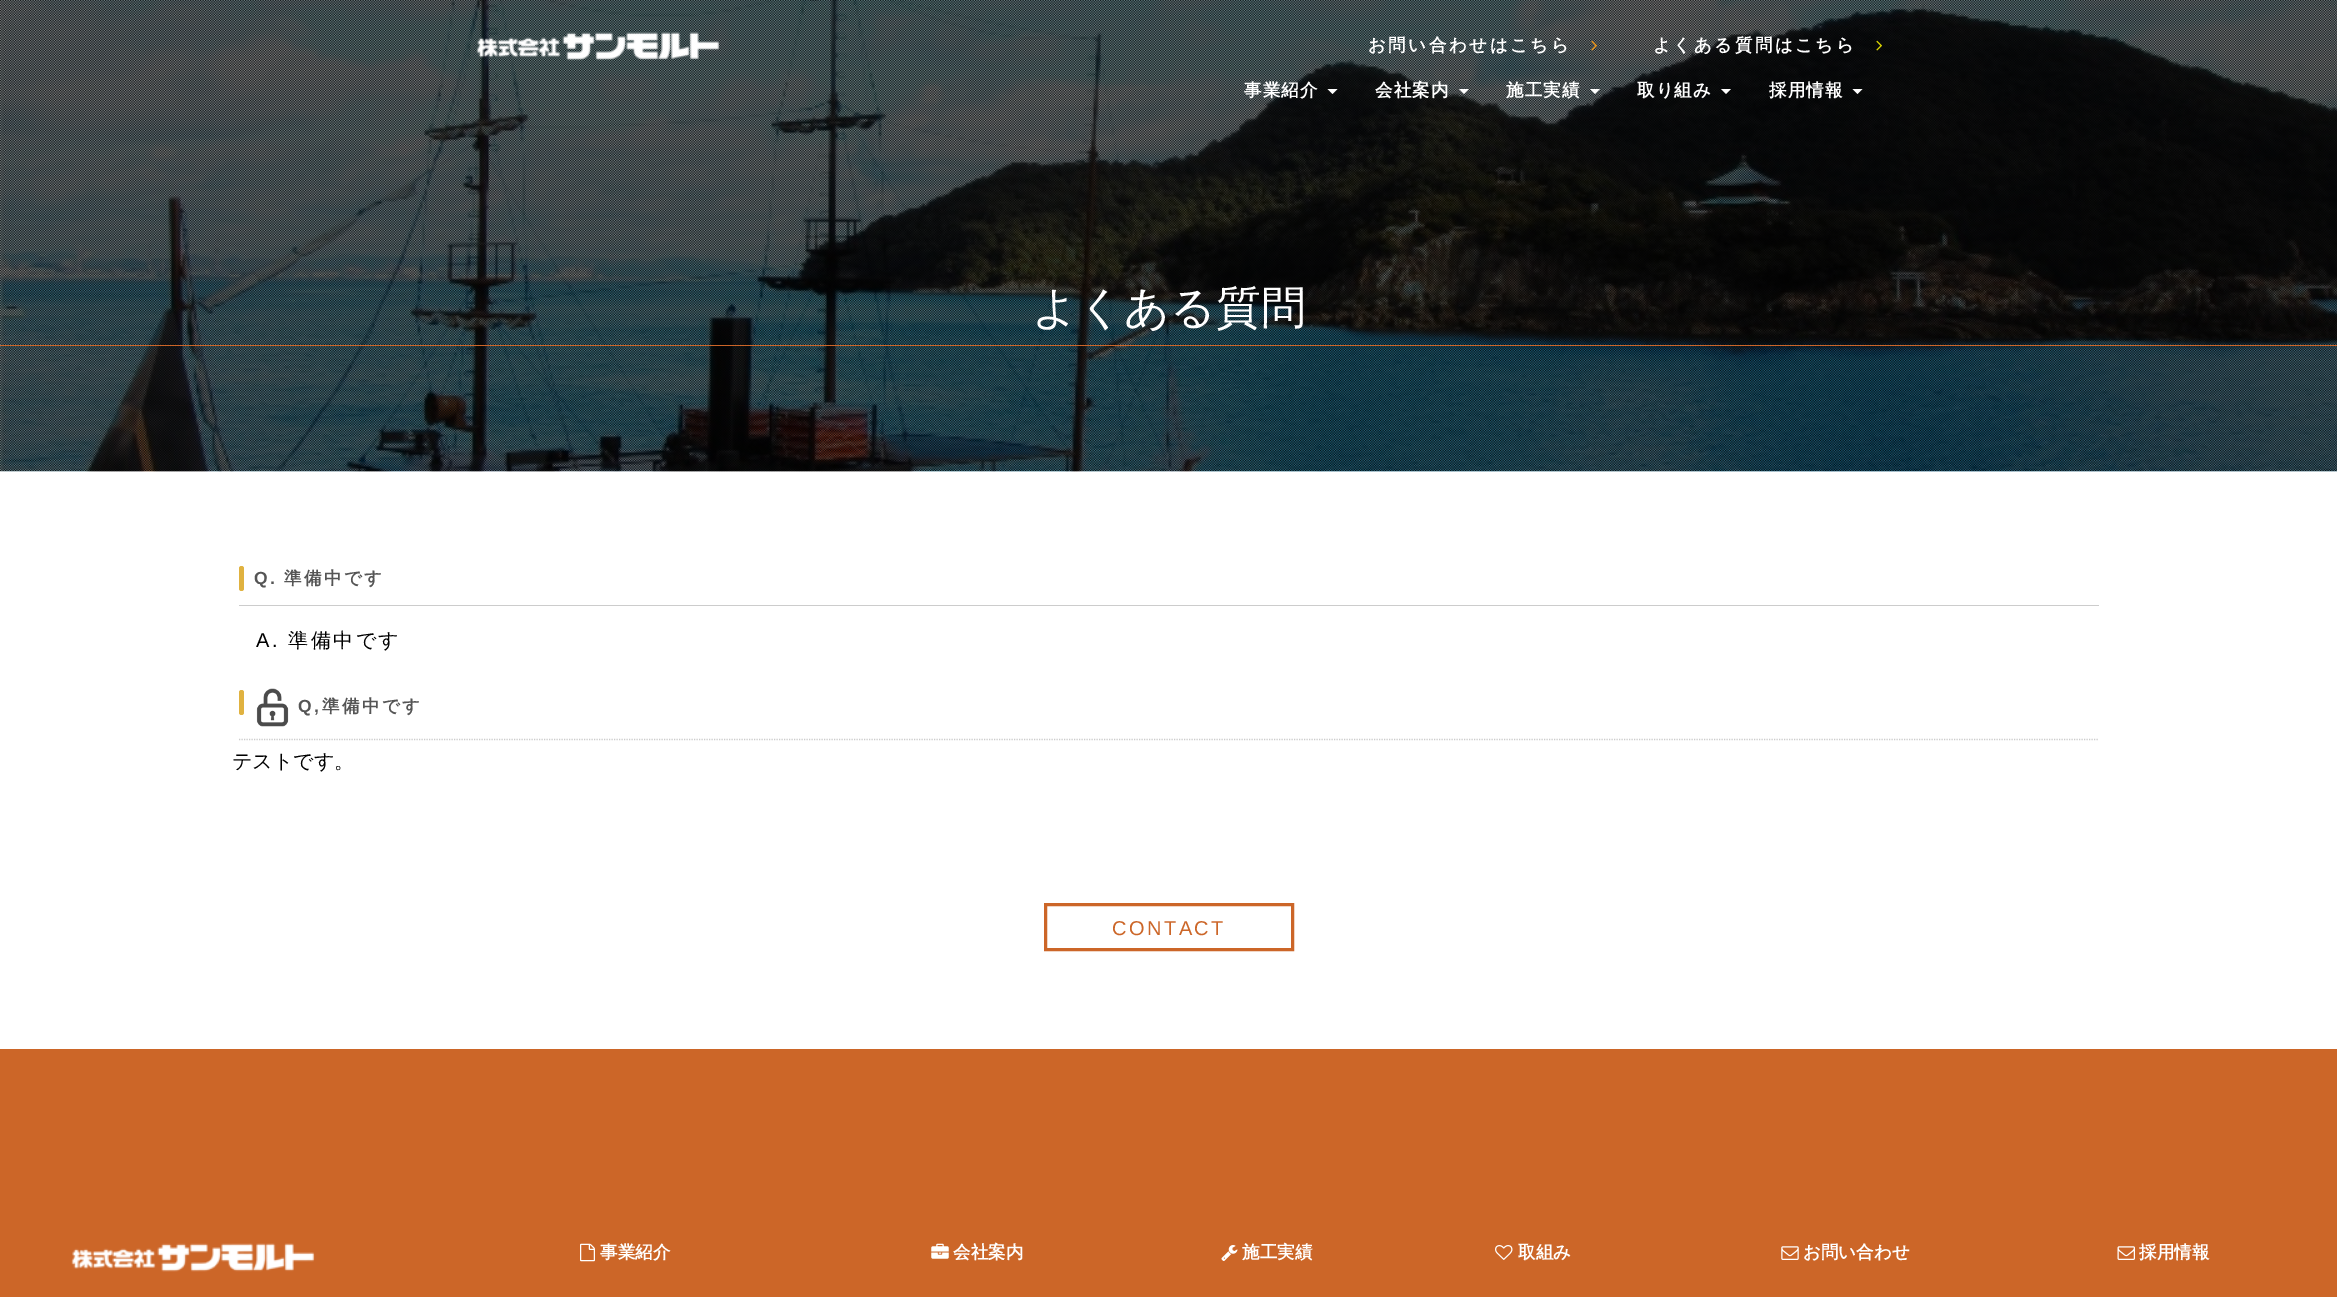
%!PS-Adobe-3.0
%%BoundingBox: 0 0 2337 1297
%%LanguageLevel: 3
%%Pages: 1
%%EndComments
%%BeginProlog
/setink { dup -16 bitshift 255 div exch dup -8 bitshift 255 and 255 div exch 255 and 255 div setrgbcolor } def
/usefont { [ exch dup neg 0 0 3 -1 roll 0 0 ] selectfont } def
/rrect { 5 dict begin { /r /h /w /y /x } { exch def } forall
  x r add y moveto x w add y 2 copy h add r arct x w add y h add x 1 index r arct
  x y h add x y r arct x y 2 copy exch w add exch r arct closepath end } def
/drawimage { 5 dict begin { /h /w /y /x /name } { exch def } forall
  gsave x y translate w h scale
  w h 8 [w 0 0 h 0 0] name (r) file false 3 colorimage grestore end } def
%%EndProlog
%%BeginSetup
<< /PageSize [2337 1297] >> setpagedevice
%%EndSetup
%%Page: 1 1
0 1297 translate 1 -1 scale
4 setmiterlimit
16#FFFFFF setink
0 0 2337 1297 rectfill
(img4.raw) 0 0 2337 472 drawimage
/WenQuanYiZenHei-Bold 17.5 usefont
1368 51 moveto 2.5 0 (お問い合わせはこちら) ashow
(img1.raw) 1591 40 6 11 drawimage
1653 51 moveto 2.5 0 (よくある質問はこちら) ashow
(img2.raw) 1876 40 6 11 drawimage
(img3.raw) 476 32 244 29 drawimage
1244 96 moveto 1 0 (事業紹介) ashow
1327.5 89 moveto 1337.5 89 lineto 1332.5 94 lineto closepath fill
1375 96 moveto 1 0 (会社案内) ashow
1459 89 moveto 1469 89 lineto 1464 94 lineto closepath fill
1506 96 moveto 1 0 (施工実績) ashow
1590 89 moveto 1600 89 lineto 1595 94 lineto closepath fill
1637 96 moveto 1 0 (取り組み) ashow
1721 89 moveto 1731 89 lineto 1726 94 lineto closepath fill
1769 96 moveto 1 0 (採用情報) ashow
1852.5 89 moveto 1862.5 89 lineto 1857.5 94 lineto closepath fill
/WenQuanYiZenHei-Medium 45 usefont
1032 323 moveto (よくある質問) show
16#CC6528 setink
0 345 2337 1 rectfill
16#CCCCCC setink
239 605 1860 1 rectfill
16#E0B240 setink
239 566 5 25 2.5 rrect fill
/LiberationSans-Bold 17.5 usefont
16#555555 setink
254 584 moveto 2.5 0 (Q.) ashow
/WenQuanYiZenHei-Bold 17.5 usefont
284 584 moveto 2.5 0 (準備中です) ashow
/LiberationSans-Regular 20 usefont
16#000000 setink
256 647 moveto 2.5 0 (A.) ashow
/WenQuanYiZenHei-Medium 20 usefont
288 647 moveto 2.5 0 (準備中です) ashow
16#CCCCCC setink
1.2 setlinewidth
[1.25 1.25] 0 setdash
239 739.5 moveto 2099 739.5 lineto stroke
16#E0B240 setink
239 690 5 25 2.5 rrect fill
(img5.raw) 256 688 33 39 drawimage
/LiberationSans-Bold 17.5 usefont
16#555555 setink
298 712 moveto 2.5 0 (Q,) ashow
/WenQuanYiZenHei-Bold 17.5 usefont
322 712 moveto 2.5 0 (準備中です) ashow
/WenQuanYiZenHei-Medium 20 usefont
16#000000 setink
232 768 moveto (テストです。) show
16#CC6628 setink
3 setlinewidth
[] 0 setdash
1045.5 904.5 247 45 rectstroke
/LiberationSans-Regular 20 usefont
1112 935 moveto 2.5 0 (CONTACT) ashow
0 1049 2337 248 rectfill
(img6.raw) 71 1243 244 29 drawimage
(img7.raw) 580 1243 15 19 drawimage
/WenQuanYiZenHei-Bold 17.5 usefont
16#FFFFFF setink
600 1258 moveto (事業紹介) show
(img8.raw) 931 1243 18 16 drawimage
953 1258 moveto (会社案内) show
(img9.raw) 1221 1245 17 16 drawimage
1242 1258 moveto (施工実績) show
(img10.raw) 1495 1245 18 15 drawimage
1518 1258 moveto (取組み) show
(img11.raw) 1781 1246 18 14 drawimage
1803 1258 moveto (お問い合わせ) show
(img12.raw) 2117 1246 18 14 drawimage
2139 1258 moveto (採用情報) show
showpage
%%EOF
